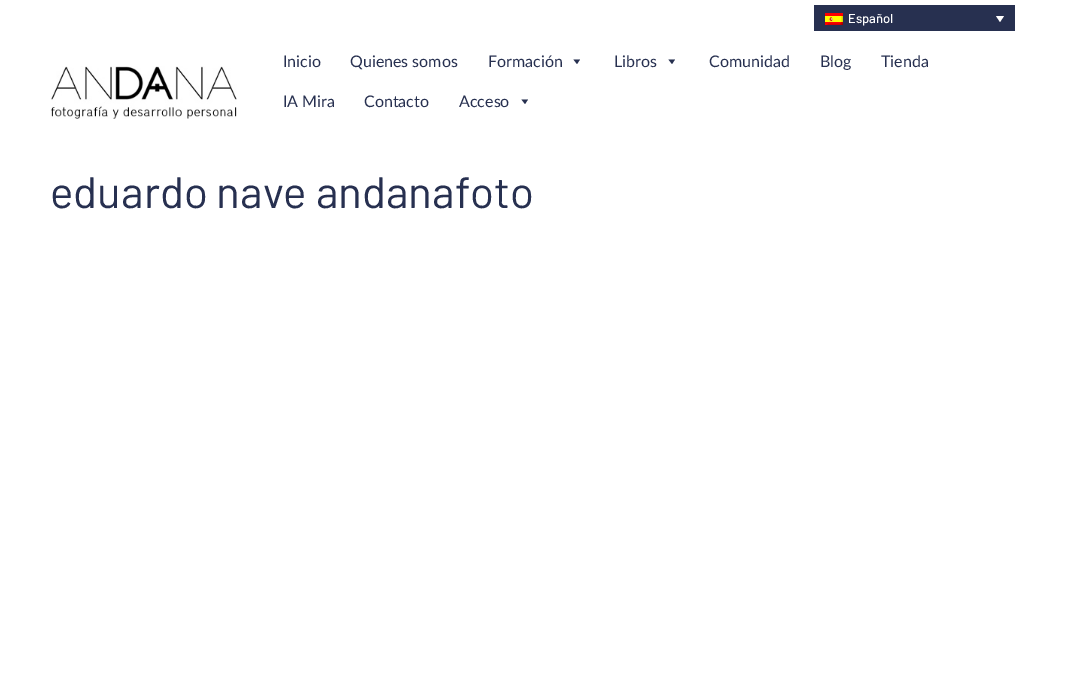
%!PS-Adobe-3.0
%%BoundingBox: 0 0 1065 675
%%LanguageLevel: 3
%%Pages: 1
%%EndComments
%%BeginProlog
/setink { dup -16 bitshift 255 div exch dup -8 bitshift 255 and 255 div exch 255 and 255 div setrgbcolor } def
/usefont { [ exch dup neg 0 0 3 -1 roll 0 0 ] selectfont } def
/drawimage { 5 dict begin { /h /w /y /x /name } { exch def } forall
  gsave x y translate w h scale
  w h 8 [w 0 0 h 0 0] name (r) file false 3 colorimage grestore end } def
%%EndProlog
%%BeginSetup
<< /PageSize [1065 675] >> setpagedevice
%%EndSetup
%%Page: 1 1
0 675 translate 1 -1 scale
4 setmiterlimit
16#FFFFFF setink
0 0 1065 675 rectfill
16#273050 setink
814 5 201 26 rectfill
(img1.raw) 825 13 18 12 drawimage
/Barlow-Medium 13 usefont
16#FFFFFF setink
848 23 moveto (Español) show
996 16 moveto 1004 16 lineto 1000 22 lineto closepath fill
(img2.raw) 50 66 187 53 drawimage
/Lato-Regular 16 usefont
16#273050 setink
[
    [(Inicio) 283 67]
    [(Quienes somos) 350 67]
    [(Formación) 488 67]
] { aload pop moveto show } forall
580 59.5 moveto 577 64 lineto 573.5 59.5 lineto closepath fill
614 67 moveto (Libros) show
675 59.5 moveto 672 64 lineto 668.5 59.5 lineto closepath fill
[
    [(Comunidad) 709 67]
    [(Blog) 820 67]
    [(Tienda) 881 67]
    [(IA Mira) 283 107]
    [(Contacto) 364 107]
    [(Acceso) 459 107]
] { aload pop moveto show } forall
528 99.5 moveto 525 104 lineto 521.5 99.5 lineto closepath fill
/Barlow-Regular 44 usefont
50 208 moveto (eduardo nave andanafoto) show
showpage
%%EOF
